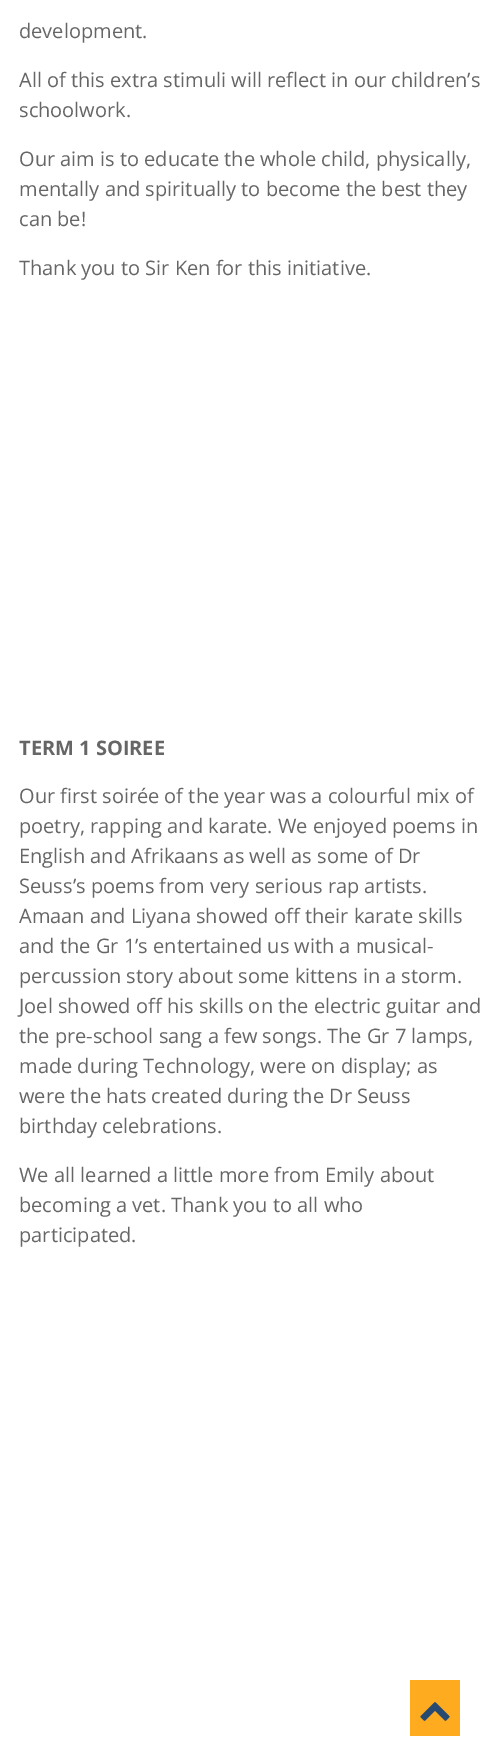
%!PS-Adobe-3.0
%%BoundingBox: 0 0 499 1754
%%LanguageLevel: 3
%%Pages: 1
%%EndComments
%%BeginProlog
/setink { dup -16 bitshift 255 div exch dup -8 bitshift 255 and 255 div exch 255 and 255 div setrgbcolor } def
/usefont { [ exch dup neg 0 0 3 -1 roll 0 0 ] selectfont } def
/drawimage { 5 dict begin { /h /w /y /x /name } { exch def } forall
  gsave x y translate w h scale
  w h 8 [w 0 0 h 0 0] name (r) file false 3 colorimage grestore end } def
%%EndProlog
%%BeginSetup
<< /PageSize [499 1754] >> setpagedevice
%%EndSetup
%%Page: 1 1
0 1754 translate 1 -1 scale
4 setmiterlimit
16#FFFFFF setink
0 0 499 1754 rectfill
/OpenSans-Regular 20 usefont
16#666666 setink
[
    [(development.) 19 38]
    [(All of this extra stimuli will reflect in our children’s) 19 87]
    [(schoolwork.) 19 117]
    [(Our aim is to educate the whole child, physically,) 19 166]
    [(mentally and spiritually to become the best they) 19 196]
    [(can be!) 19 226]
    [(Thank you to Sir Ken for this initiative.) 19 275]
] { aload pop moveto show } forall
/OpenSans-Bold 20 usefont
19 755 moveto (TERM 1 SOIREE) show
/OpenSans-Regular 20 usefont
[
    [(Our first soirée of the year was a colourful mix of) 19 803]
    [(poetry, rapping and karate. We enjoyed poems in) 19 833]
    [(English and Afrikaans as well as some of Dr) 19 863]
    [(Seuss’s poems from very serious rap artists.) 19 893]
    [(Amaan and Liyana showed off their karate skills) 19 923]
    [(and the Gr 1’s entertained us with a musical-) 19 953]
    [(percussion story about some kittens in a storm.) 19 983]
    [(Joel showed off his skills on the electric guitar and) 19 1013]
    [(the pre-school sang a few songs. The Gr 7 lamps,) 19 1043]
    [(made during Technology, were on display; as) 19 1073]
    [(were the hats created during the Dr Seuss) 19 1103]
    [(birthday celebrations.) 19 1133]
    [(We all learned a little more from Emily about) 19 1182]
    [(becoming a vet. Thank you to all who) 19 1212]
    [(participated.) 19 1242]
] { aload pop moveto show } forall
16#FFAB1F setink
410 1680 50 56 rectfill
(img1.raw) 420 1702 30 19 drawimage
showpage
%%EOF
